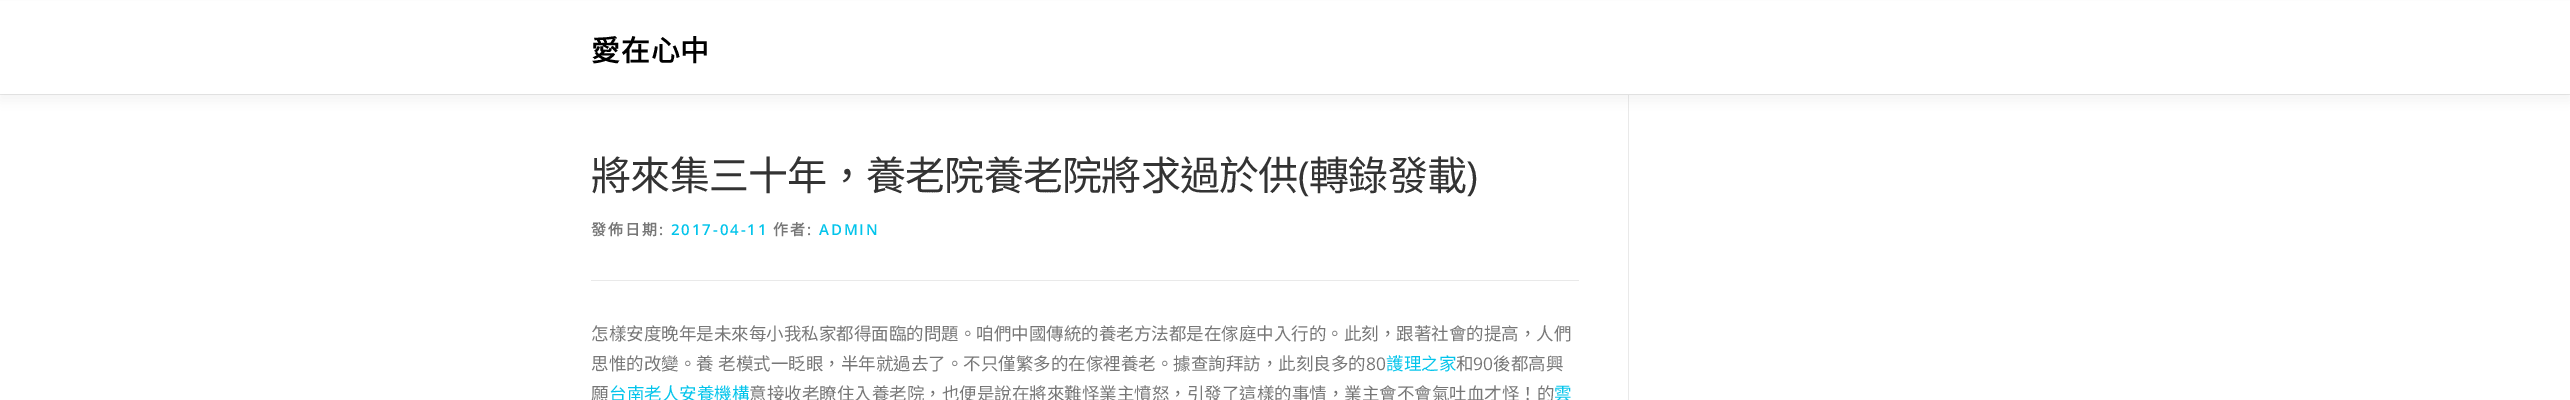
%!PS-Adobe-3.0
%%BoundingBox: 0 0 2570 400
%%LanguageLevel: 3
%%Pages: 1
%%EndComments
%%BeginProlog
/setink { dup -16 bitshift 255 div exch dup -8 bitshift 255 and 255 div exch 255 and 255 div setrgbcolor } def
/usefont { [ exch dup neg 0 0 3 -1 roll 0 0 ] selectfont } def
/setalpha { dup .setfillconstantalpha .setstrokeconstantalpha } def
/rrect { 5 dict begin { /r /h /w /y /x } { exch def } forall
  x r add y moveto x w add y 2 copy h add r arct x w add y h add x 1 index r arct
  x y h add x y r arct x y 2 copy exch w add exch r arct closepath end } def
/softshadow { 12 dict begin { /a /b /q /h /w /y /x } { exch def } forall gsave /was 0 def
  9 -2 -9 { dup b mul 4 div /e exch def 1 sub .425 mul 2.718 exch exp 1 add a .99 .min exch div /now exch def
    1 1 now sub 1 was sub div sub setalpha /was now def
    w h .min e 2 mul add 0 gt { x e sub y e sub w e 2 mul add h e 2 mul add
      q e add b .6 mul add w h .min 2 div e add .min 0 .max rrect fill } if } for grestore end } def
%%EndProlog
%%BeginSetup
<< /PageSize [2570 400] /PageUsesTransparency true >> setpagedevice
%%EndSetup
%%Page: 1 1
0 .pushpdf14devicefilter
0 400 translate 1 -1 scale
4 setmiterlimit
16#FFFFFF setink
0 0 2570 400 rectfill
16#E9E9E9 setink
0 94 2570 1 rectfill
1628 95 1 305 rectfill
16#323232 setink
0 6 2570 94 0 6 0.06 softshadow
16#FFFFFF setink
0 1 2570 93 rectfill
/NotoSansCJKTC-Bold 28.75 usefont
16#000000 setink
591 61 moveto 1 0 (愛在心中) ashow
/NotoSansCJKTC-Regular 40 usefont
16#333333 setink
591 190 moveto -0.75 0 (將來集三十年，養老院養老院將求過於供) ashow
/OpenSans-Regular 40 usefont
1298 190 moveto -0.75 0 (\() ashow
/NotoSansCJKTC-Regular 40 usefont
1309 190 moveto -0.75 0 (轉錄發載) ashow
/OpenSans-Regular 40 usefont
1466 190 moveto -0.75 0 (\)) ashow
16#E9E9E9 setink
591 280 988 1 rectfill
/NotoSansCJKTC-Bold 15 usefont
16#777777 setink
591 235 moveto 1.9 0 (發佈日期) ashow
/OpenSans-SemiBold 15 usefont
659 235 moveto 1.9 0 (:) ashow
16#03C4EB setink
671 235 moveto 1.9 0 (2017-04-11) ashow
/NotoSansCJKTC-Bold 15 usefont
16#777777 setink
773 235 moveto 1.9 0 (作者) ashow
/OpenSans-SemiBold 15 usefont
807 235 moveto 1.9 0 (:) ashow
16#03C4EB setink
819 235 moveto 1.9 0 (ADMIN) ashow
/NotoSansCJKTC-Regular 17.5 usefont
16#777777 setink
591 340 moveto (怎樣安度晚年是未來每小我私家都得面臨的問題。咱們中國傳統的養老方法都是在傢庭中入行的。此刻，跟著社會的提高，人們) show
591 370 moveto 1 0 32 (思惟的改變。養 老模式一眨眼，半年就過去了。不只僅繁多的在傢裡養老。據查詢拜訪，此刻良多的) widthshow
/OpenSans-Regular 17.5 usefont
1366 370 moveto (80) show
/NotoSansCJKTC-Regular 17.5 usefont
16#03C4EB setink
1386 370 moveto (護理之家) show
16#777777 setink
1456 370 moveto (和) show
/OpenSans-Regular 17.5 usefont
1473 370 moveto (90) show
/NotoSansCJKTC-Regular 17.5 usefont
1493 370 moveto (後都高興) show
591 400 moveto (願) show
16#03C4EB setink
609 400 moveto (台南老人安養機構) show
16#777777 setink
749 400 moveto (意接收老瞭住入養老院，也便是說在將來難怪業主憤怒，引發了這樣的事情，業主會不會氣吐血才怪！的) show
16#03C4EB setink
1554 400 moveto (雲) show
.poppdf14devicefilter showpage
%%EOF
